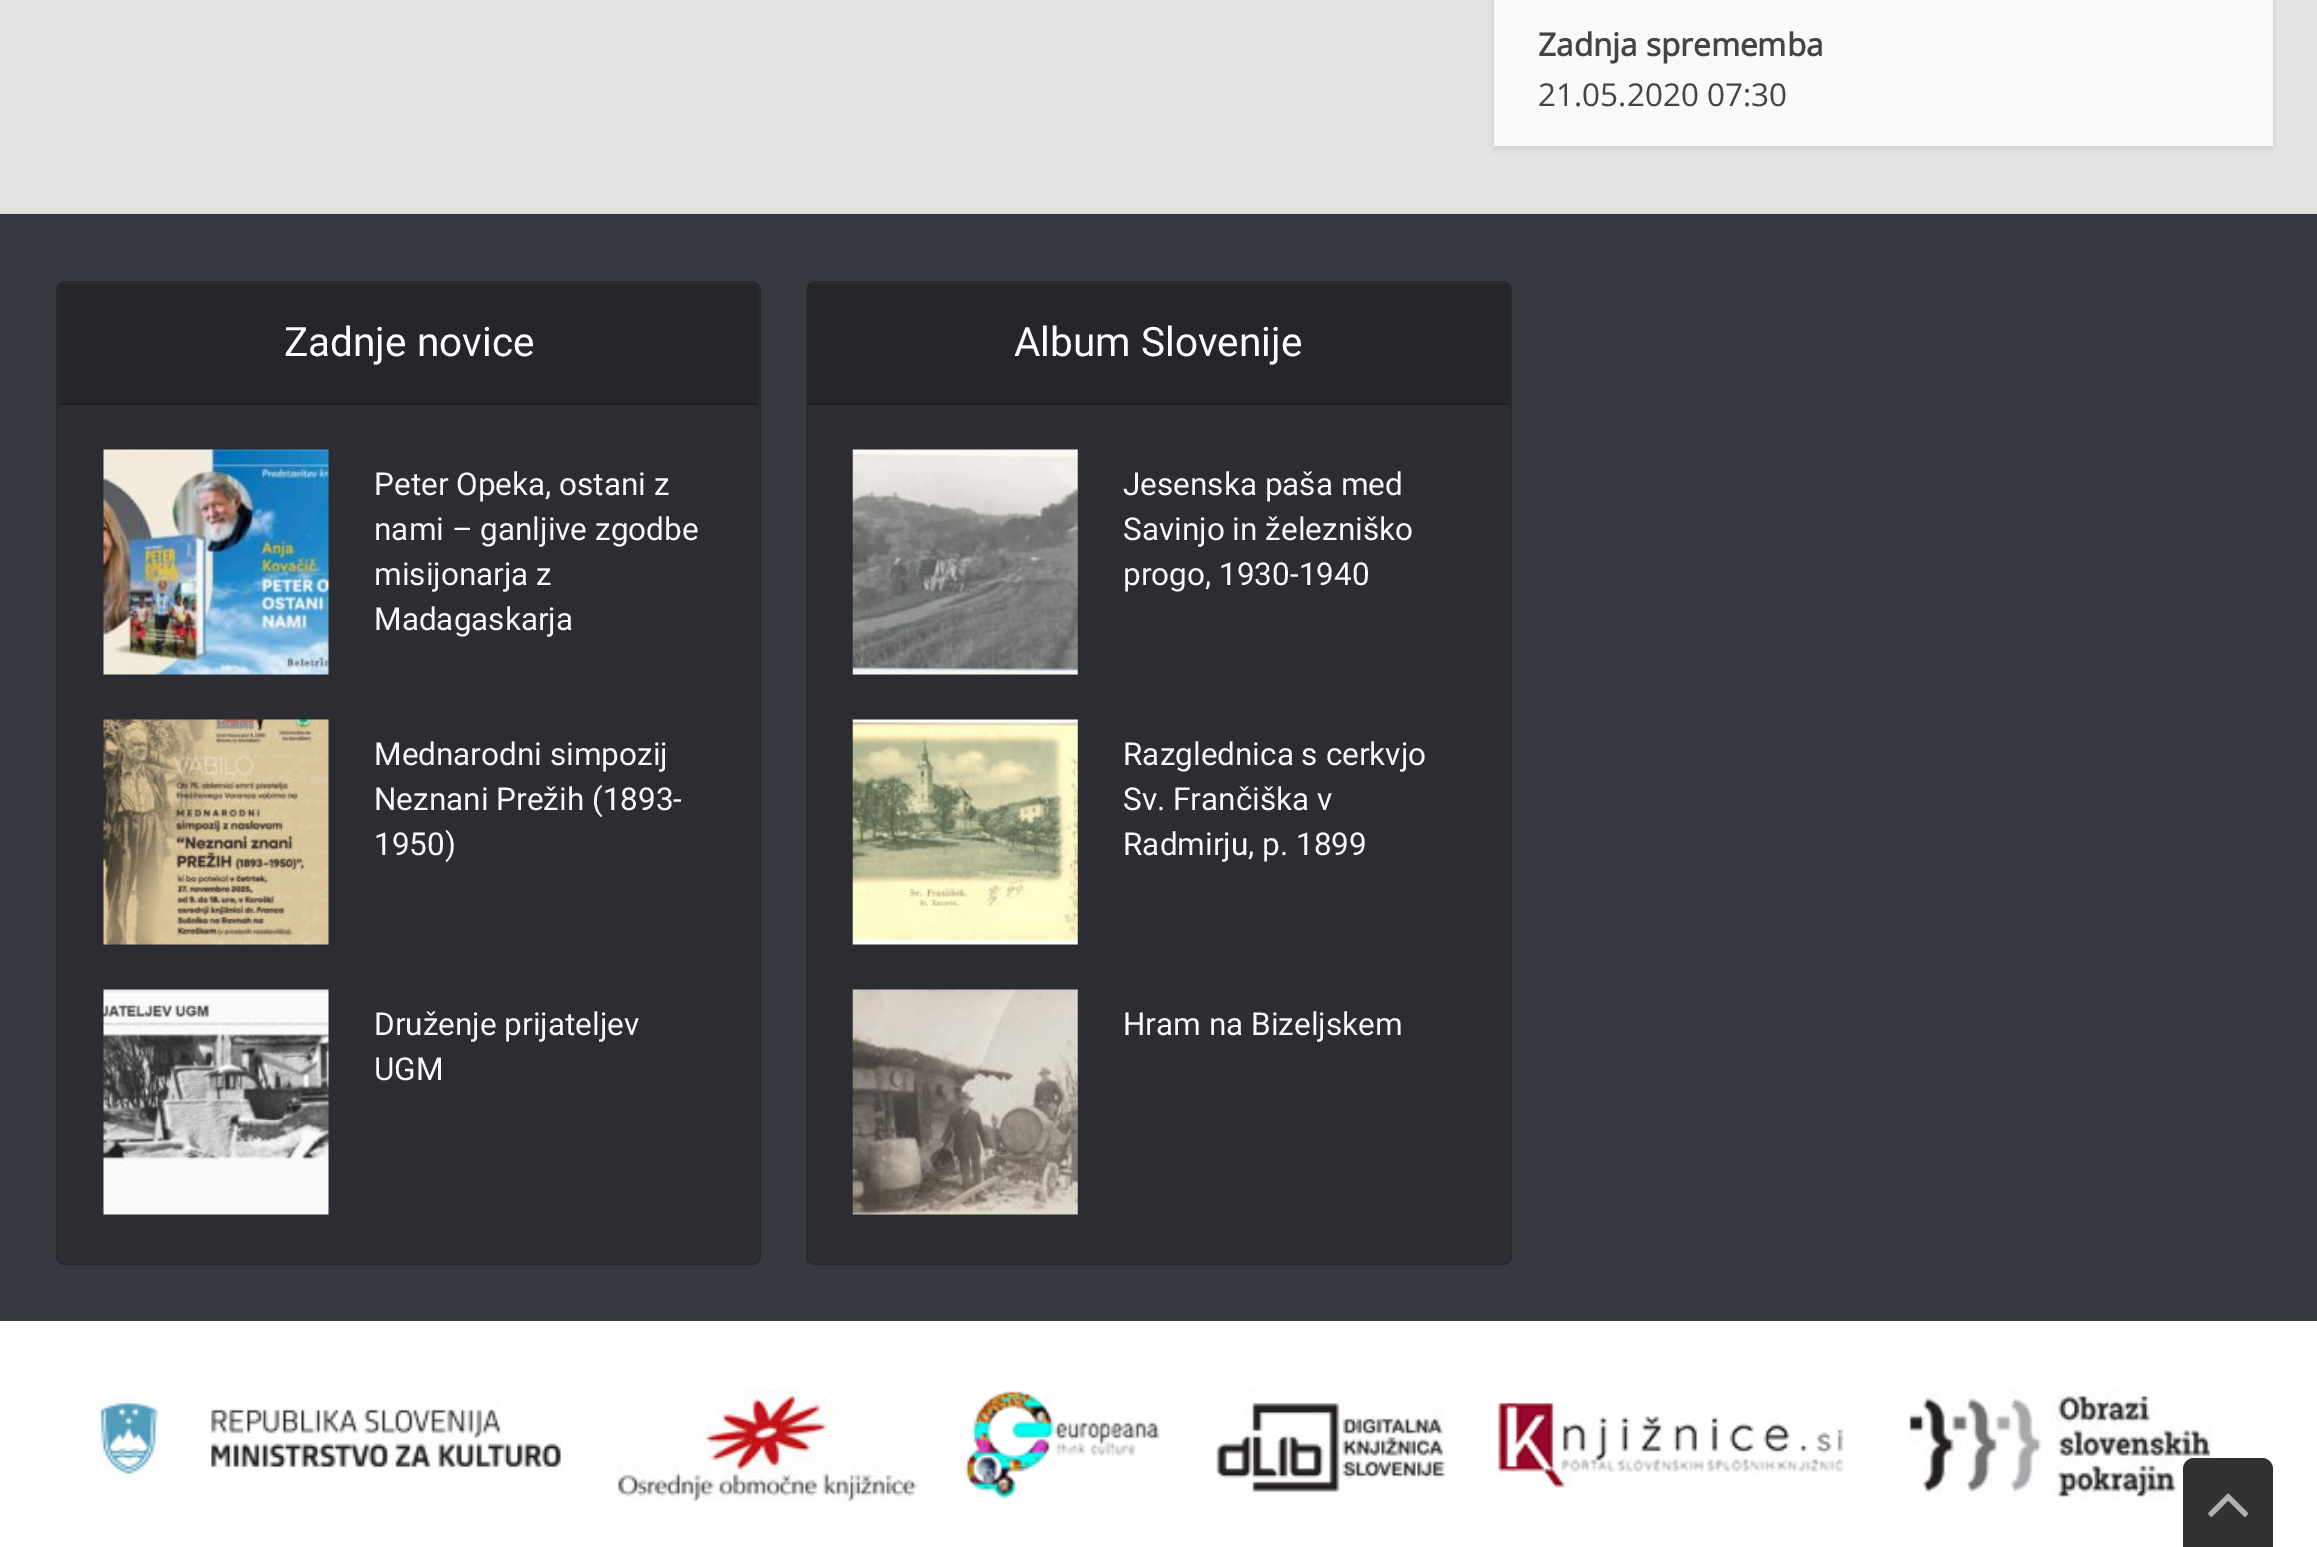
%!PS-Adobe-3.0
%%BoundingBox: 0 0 2317 1547
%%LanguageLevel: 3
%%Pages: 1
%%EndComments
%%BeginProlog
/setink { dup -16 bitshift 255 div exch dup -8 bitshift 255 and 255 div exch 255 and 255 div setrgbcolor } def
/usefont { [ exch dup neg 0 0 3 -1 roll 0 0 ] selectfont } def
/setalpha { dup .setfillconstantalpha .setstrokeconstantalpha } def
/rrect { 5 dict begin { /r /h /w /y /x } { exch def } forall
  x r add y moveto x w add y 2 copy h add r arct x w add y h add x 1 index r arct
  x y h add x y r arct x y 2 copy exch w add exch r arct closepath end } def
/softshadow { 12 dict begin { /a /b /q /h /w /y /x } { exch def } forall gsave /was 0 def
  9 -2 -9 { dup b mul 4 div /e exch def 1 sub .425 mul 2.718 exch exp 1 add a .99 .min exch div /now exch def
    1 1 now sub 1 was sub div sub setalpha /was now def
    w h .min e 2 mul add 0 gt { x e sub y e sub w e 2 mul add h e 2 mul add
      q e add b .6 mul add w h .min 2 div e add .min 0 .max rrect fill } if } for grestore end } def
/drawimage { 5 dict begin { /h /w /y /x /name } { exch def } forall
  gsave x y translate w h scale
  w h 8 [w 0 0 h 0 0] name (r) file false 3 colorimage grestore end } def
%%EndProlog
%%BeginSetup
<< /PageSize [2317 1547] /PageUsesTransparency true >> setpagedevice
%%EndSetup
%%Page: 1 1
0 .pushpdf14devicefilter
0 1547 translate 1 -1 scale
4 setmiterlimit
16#E5E5E5 setink
0 0 2317 1547 rectfill
16#000000 setink
1494 -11 779 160 0 3.5 0.1 softshadow
16#F9F9F9 setink
1494 0 779 146 rectfill
/OpenSans-Bold 31.5 usefont
16#444444 setink
1538 56 moveto (Zadnja sprememba) show
/OpenSans-Regular 31.5 usefont
1538 106 moveto (21.05.2020 07:30) show
16#000000 setink
0 218 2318 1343 0 4.5 0.2 softshadow
16#373941 setink
0 214 2317 1107 rectfill
16#2C2D33 setink
56 281 705 984 9 rrect fill
0.1 setalpha
16#000000 setink
2 setlinewidth
57 282 703 982 8 rrect stroke
0.15 setalpha
59 284 699 119 rectfill
1 setalpha
16#1E1F23 setink
59 403 699 2 rectfill
/Roboto-Regular 40.5 usefont
16#FFFFFF setink
284 356 moveto (Zadnje novice) show
(img1.raw) 103 449 226 226 drawimage
/Roboto-Regular 31.5 usefont
16#F9F9F9 setink
[
    [(Peter Opeka, ostani z) 374 495]
    [(nami – ganljive zgodbe) 374 540]
    [(misijonarja z) 374 585]
    [(Madagaskarja) 374 630]
] { aload pop moveto show } forall
(img2.raw) 103 719 226 226 drawimage
[
    [(Mednarodni simpozij) 374 765]
    [(Neznani Prežih \(1893-) 374 810]
    [(1950\)) 374 855]
] { aload pop moveto show } forall
(img3.raw) 103 989 226 226 drawimage
374 1035 moveto (Druženje prijateljev) show
374 1080 moveto (UGM) show
16#2C2D33 setink
806 281 706 984 9 rrect fill
0.1 setalpha
16#000000 setink
807 282 704 982 8 rrect stroke
0.15 setalpha
808 284 702 119 rectfill
1 setalpha
16#1E1F23 setink
808 403 702 2 rectfill
/Roboto-Regular 40.5 usefont
16#FFFFFF setink
1014 356 moveto (Album Slovenije) show
(img4.raw) 852 449 226 226 drawimage
/Roboto-Regular 31.5 usefont
16#F9F9F9 setink
[
    [(Jesenska paša med) 1123 495]
    [(Savinjo in železniško) 1123 540]
    [(progo, 1930-1940) 1123 585]
] { aload pop moveto show } forall
(img5.raw) 852 719 226 226 drawimage
[
    [(Razglednica s cerkvjo) 1123 765]
    [(Sv. Frančiška v) 1123 810]
    [(Radmirju, p. 1899) 1123 855]
] { aload pop moveto show } forall
(img6.raw) 852 989 226 226 drawimage
1123 1035 moveto (Hram na Bizeljskem) show
16#FFFFFF setink
0 1321 2317 226 rectfill
(img7.raw) 86 1397 476 90 drawimage
(img8.raw) 616 1390 302 113 drawimage
(img9.raw) 964 1389 196 110 drawimage
(img10.raw) 1208 1390 238 105 drawimage
(img11.raw) 1496 1401 348 87 drawimage
(img12.raw) 1908 1390 304 108 drawimage
16#323232 setink
2194 1458 moveto 2262 1458 lineto 2268 1458 2273 1463 2273 1469 curveto 2273 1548 lineto 2183 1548 lineto 2183 1469 lineto 2183 1463 2188 1458 2194 1458 curveto closepath fill
(img13.raw) 2208 1493 41 24 drawimage
.poppdf14devicefilter showpage
%%EOF
